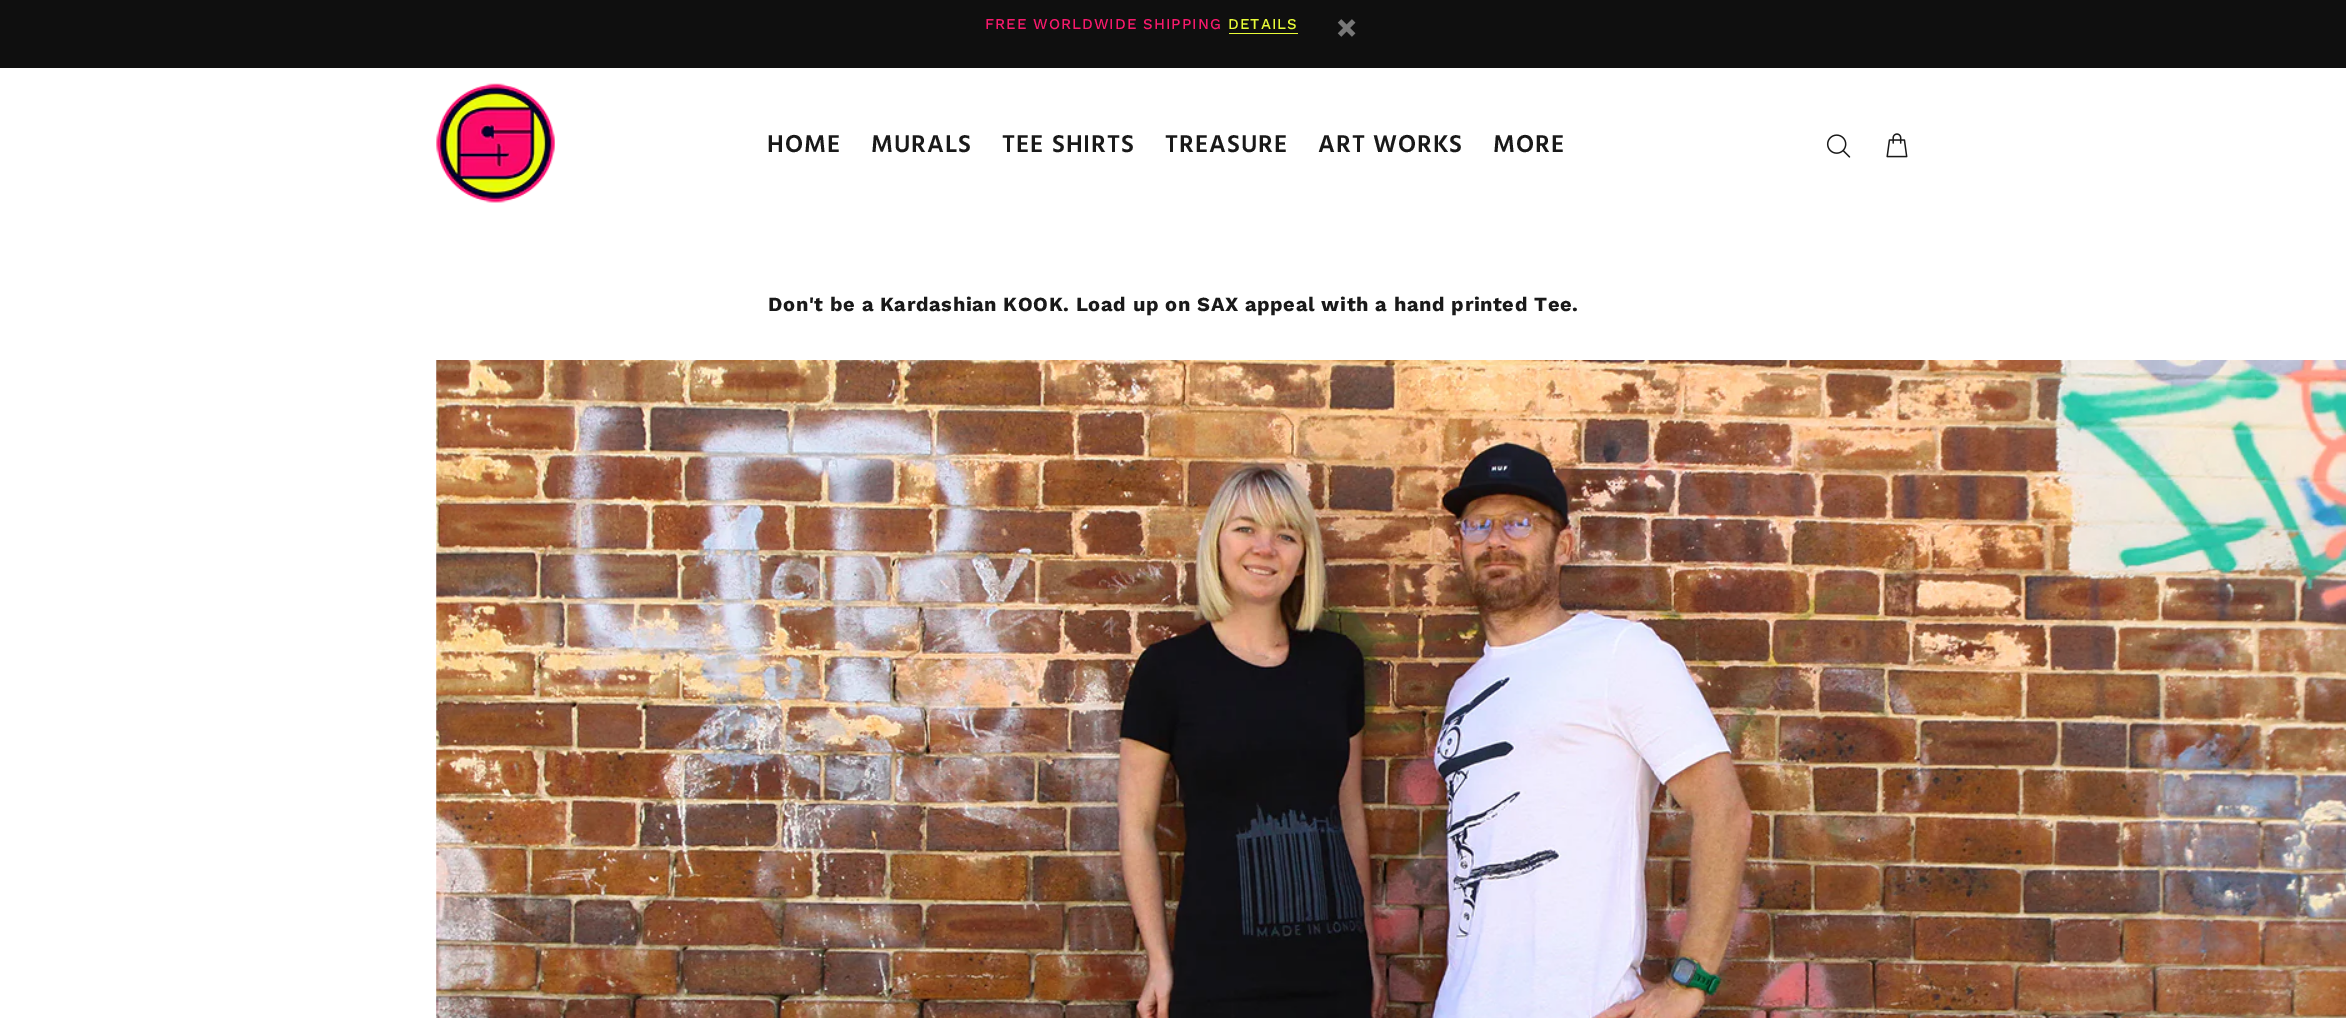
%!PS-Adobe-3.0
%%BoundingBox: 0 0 2346 1018
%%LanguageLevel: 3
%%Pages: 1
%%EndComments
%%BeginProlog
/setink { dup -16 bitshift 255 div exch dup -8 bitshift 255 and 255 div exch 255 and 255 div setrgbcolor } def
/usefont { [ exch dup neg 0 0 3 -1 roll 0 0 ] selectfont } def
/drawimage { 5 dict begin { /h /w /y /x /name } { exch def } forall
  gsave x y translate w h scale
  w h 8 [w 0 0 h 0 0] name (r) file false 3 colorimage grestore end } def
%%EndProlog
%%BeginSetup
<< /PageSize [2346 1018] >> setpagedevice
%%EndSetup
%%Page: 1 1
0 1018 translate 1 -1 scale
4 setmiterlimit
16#FFFFFF setink
0 0 2346 1018 rectfill
16#0F0F0F setink
0 0 2346 68 rectfill
/WorkSans-Medium 15 usefont
16#F8196C setink
985 29 moveto 1 0 (FREE WORLDWIDE SHIPPING) ashow
16#E8FB38 setink
1228 29 moveto 1 0 (DETAILS) ashow
1229 33 69 1 rectfill
(img1.raw) 1337 19 19 18 drawimage
(img2.raw) 436 83 119 120 drawimage
/Hind-SemiBold 25 usefont
16#191919 setink
767 152 moveto 1 0 (HOME) ashow
871 152 moveto 1 0 (MURALS) ashow
1002 152 moveto 1 0 (TEE SHIRTS) ashow
1165 152 moveto 1 0 (TREASURE) ashow
1318 152 moveto 1 0 (ART WORKS) ashow
1493 152 moveto 1 0 (MORE) ashow
(img3.raw) 1826 134 25 24 drawimage
(img4.raw) 1886 133 22 25 drawimage
/WorkSans-Bold 20 usefont
768 311 moveto 0.6 0 (Don't be a Kardashian KOOK. Load up on SAX appeal with a hand printed Tee.) ashow
(img5.raw) 436 360 1910 658 drawimage
showpage
%%EOF
